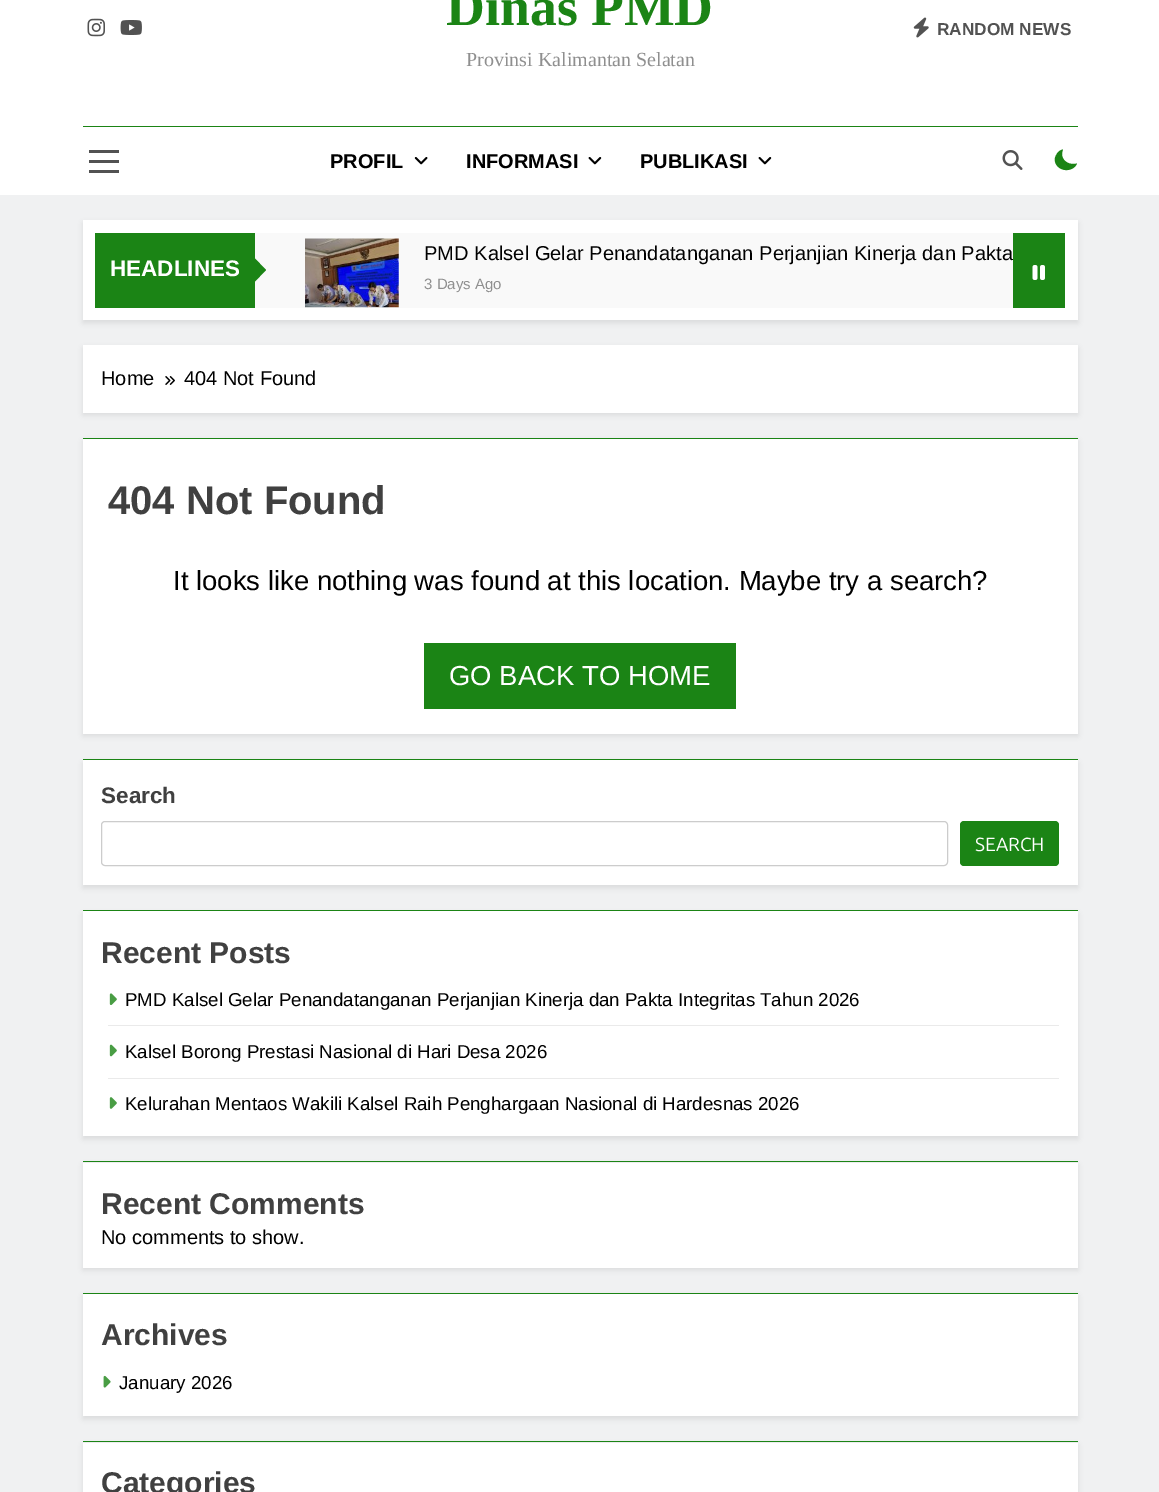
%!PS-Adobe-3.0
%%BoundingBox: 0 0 1159 1492
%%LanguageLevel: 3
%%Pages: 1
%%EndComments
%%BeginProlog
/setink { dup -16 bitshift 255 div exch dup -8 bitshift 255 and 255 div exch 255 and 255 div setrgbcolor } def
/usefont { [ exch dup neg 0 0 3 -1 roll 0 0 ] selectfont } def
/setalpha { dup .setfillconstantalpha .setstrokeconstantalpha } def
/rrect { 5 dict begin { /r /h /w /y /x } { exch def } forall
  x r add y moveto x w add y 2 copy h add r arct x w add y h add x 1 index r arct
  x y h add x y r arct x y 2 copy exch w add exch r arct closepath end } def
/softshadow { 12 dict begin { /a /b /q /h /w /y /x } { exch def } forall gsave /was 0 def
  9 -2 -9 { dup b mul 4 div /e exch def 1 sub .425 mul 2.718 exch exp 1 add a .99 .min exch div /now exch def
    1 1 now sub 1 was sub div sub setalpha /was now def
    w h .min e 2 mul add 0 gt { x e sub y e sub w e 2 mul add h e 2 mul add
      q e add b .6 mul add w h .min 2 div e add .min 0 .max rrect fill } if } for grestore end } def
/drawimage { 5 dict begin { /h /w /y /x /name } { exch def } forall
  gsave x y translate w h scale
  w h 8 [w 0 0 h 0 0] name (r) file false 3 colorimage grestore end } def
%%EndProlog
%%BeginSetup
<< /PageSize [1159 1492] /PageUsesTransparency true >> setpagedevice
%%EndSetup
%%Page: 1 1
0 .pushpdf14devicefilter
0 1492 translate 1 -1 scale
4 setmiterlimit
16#F0F1F2 setink
0 0 1159 1492 rectfill
16#FFFFFF setink
0 0 1159 195 rectfill
(img1.raw) 87 18 18 19 drawimage
(img2.raw) 120 20 22 15 drawimage
/LiberationSerif-Bold 53.75 usefont
16#1B8415 setink
446 25 moveto (Dinas PMD) show
/LiberationSerif-Regular 20 usefont
16#8F8F8F setink
466 66 moveto (Provinsi Kalimantan Selatan) show
(img3.raw) 913 17 16 21 drawimage
/LiberationSans-Bold 17.25 usefont
16#525252 setink
937 35 moveto (RANDOM NEWS) show
[
    [83 126 995 1 16#1B8415]
    [89 150 30 3 16#525252]
    [89 160 30 3 16#525252]
    [89 170 30 3 16#525252]
] { aload pop setink rectfill } forall
/LiberationSans-Bold 20 usefont
16#000000 setink
330 168 moveto (PROFIL) show
(img4.raw) 414 157 14 8 drawimage
466 168 moveto (INFORMASI) show
(img5.raw) 588 157 14 8 drawimage
640 168 moveto (PUBLIKASI) show
(img5.raw) 758 157 14 8 drawimage
(img6.raw) 1002 150 21 20 drawimage
16#1B8415 setink
1077 163.5 moveto 1068 166 1059 159 1063 149.5 curveto 1060 150 1057.5 152 1056.5 154.5 curveto 1055 156.5 1054.5 159 1055 161.5 curveto 1057.5 172 1073 173 1077 163.5 curveto closepath fill
16#000000 setink
83 223 995 100 0 2.5 0.08 softshadow
16#FFFFFF setink
83 220 995 100 rectfill
16#1B8415 setink
95 233 160 75 rectfill
/LiberationSans-Bold 22.5 usefont
16#FFFFFF setink
110 276 moveto (HEADLINES) show
16#F9F9F9 setink
255 233 758 75 rectfill
16#1B8415 setink
254 282.5 moveto 254 257.5 lineto 266 270 lineto closepath fill
(img7.raw) 305 238 94 70 drawimage
/LiberationSans-Regular 20.1 usefont
16#000000 setink
424 260 moveto (PMD Kalsel Gelar Penandatanganan Perjanjian Kinerja dan Pakta) show
/LiberationSans-Regular 15 usefont
16#8F8F8F setink
424 289 moveto (3 Days Ago) show
16#1B8415 setink
1013 233 52 75 rectfill
(img8.raw) 1032 265 13 15 drawimage
16#000000 setink
83 348 995 67 0 2.5 0.08 softshadow
16#FFFFFF setink
83 345 995 68 rectfill
/LiberationSans-Regular 20 usefont
16#000000 setink
101 385 moveto (Home) show
(img9.raw) 165 376 10 9 drawimage
184 385 moveto (404 Not Found) show
83 441 995 295 0 2.5 0.08 softshadow
16#FFFFFF setink
83 439 995 295 rectfill
16#1B8415 setink
83 438 995 1 rectfill
/LiberationSans-Bold 40 usefont
16#404040 setink
108 514 moveto (404 Not Found) show
/LiberationSans-Regular 27.5 usefont
16#000000 setink
173 590 moveto (It looks like nothing was found at this location. Maybe try a search?) show
16#1B8415 setink
424 643 312 66 rectfill
16#FFFFFF setink
449 685 moveto (GO BACK TO HOME) show
16#000000 setink
83 763 995 125 0 2.5 0.08 softshadow
16#FFFFFF setink
83 760 995 125 rectfill
16#1B8415 setink
83 759 995 1 rectfill
/LiberationSans-Bold 22.5 usefont
16#404040 setink
101 803 moveto (Search) show
16#CCCCCC setink
101.5 821.5 846 44 3.5 rrect stroke
16#1B8415 setink
960 821 99 45 4 rrect fill
/Ubuntu-Regular 19 usefont
16#FFFFFF setink
975 851 moveto (SEARCH) show
16#000000 setink
83 914 995 225 0 2.5 0.08 softshadow
16#FFFFFF setink
83 911 995 225 rectfill
16#1B8415 setink
83 910 995 1 rectfill
/LiberationSans-Bold 30 usefont
16#404040 setink
101 963 moveto (Recent Posts) show
16#EAEAEA setink
108 1025 951 1 rectfill
(img10.raw) 109 993 8 12 drawimage
/LiberationSans-Regular 18.7 usefont
16#000000 setink
125 1006 moveto (PMD Kalsel Gelar Penandatanganan Perjanjian Kinerja dan Pakta Integritas Tahun 2026) show
16#EAEAEA setink
108 1078 951 1 rectfill
(img11.raw) 109 1044 8 13 drawimage
16#000000 setink
125 1058 moveto (Kalsel Borong Prestasi Nasional di Hari Desa 2026) show
(img12.raw) 109 1097 8 12 drawimage
125 1110 moveto (Kelurahan Mentaos Wakili Kalsel Raih Penghargaan Nasional di Hardesnas 2026) show
83 1165 995 105 0 2.5 0.08 softshadow
16#FFFFFF setink
83 1163 995 105 rectfill
16#1B8415 setink
83 1161 995 1 rectfill
/LiberationSans-Bold 30 usefont
16#404040 setink
101 1214 moveto (Recent Comments) show
/LiberationSans-Regular 20 usefont
16#000000 setink
101 1244 moveto (No comments to show.) show
83 1296 995 123 0 2.5 0.08 softshadow
16#FFFFFF setink
83 1294 995 122 rectfill
16#1B8415 setink
83 1293 995 1 rectfill
/LiberationSans-Bold 30 usefont
16#404040 setink
101 1345 moveto (Archives) show
(img13.raw) 103 1375 8 13 drawimage
/LiberationSans-Regular 18.7 usefont
16#000000 setink
119 1389 moveto (January 2026) show
83 1445 995 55 0 2.5 0.08 softshadow
16#FFFFFF setink
83 1443 995 49 rectfill
16#1B8415 setink
83 1441 995 1 rectfill
/LiberationSans-Bold 30 usefont
16#404040 setink
101 1493 moveto (Categories) show
.poppdf14devicefilter showpage
%%EOF
